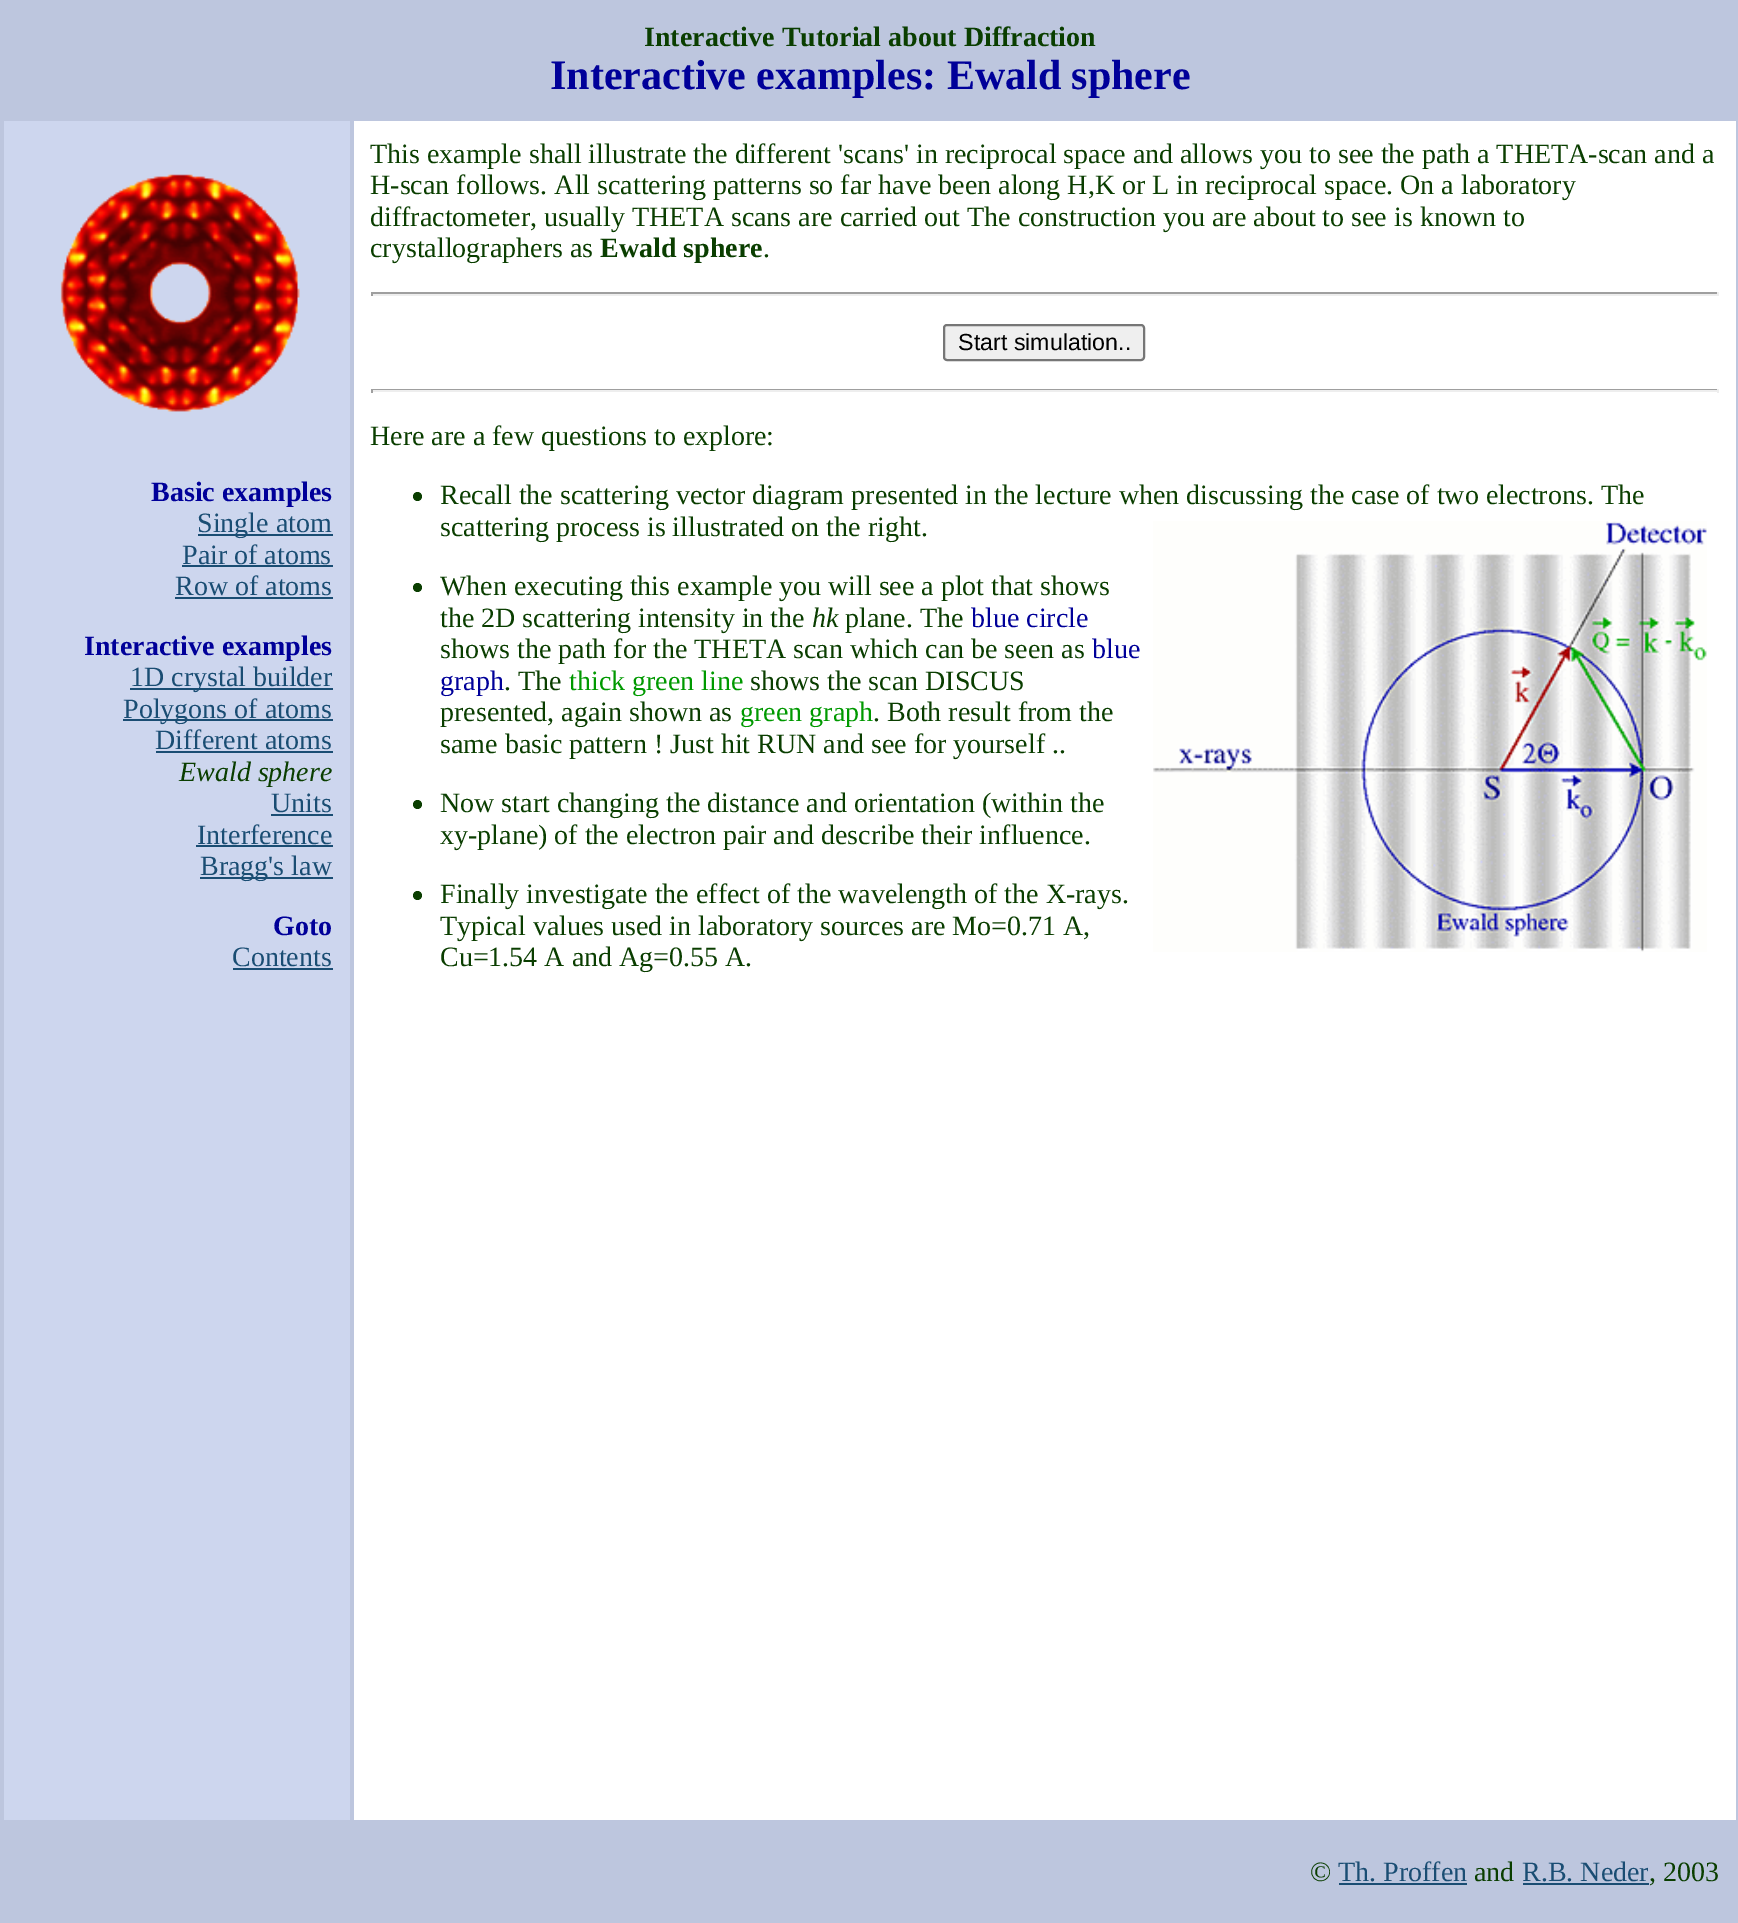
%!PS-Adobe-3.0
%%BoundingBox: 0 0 1738 1923
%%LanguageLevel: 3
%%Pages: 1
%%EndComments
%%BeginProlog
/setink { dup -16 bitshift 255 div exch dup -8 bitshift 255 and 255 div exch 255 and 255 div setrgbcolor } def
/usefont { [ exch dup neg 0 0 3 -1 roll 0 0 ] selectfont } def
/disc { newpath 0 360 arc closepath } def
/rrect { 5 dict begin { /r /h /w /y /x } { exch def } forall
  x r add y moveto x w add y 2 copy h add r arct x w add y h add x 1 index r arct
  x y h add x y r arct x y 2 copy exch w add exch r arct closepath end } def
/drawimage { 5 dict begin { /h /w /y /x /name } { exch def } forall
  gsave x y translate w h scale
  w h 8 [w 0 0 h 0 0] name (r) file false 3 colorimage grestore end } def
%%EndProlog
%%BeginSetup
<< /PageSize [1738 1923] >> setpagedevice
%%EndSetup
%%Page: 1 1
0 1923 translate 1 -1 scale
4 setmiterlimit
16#BDC6DE setink
0 0 1738 1923 rectfill
/LiberationSerif-Bold 28 usefont
16#0A3E00 setink
644 46 moveto (Interactive Tutorial about Diffraction) show
/LiberationSerif-Bold 42 usefont
16#000099 setink
550 89 moveto (Interactive examples: Ewald sphere) show
16#CDD6EE setink
4 121 346 1699 rectfill
(img1.raw) 60 174 240 238 drawimage
/LiberationSerif-Bold 28 usefont
16#000099 setink
151 501 moveto (Basic examples) show
16#1A4D73 setink
198 534 135 2 rectfill
/LiberationSerif-Regular 28 usefont
197 532 moveto (Single atom) show
182 564 moveto (Pair of atoms) show
182 565 151 2 rectfill
175 595 moveto (Row of atoms) show
175 597 158 2 rectfill
/LiberationSerif-Bold 28 usefont
16#000099 setink
84 655 moveto (Interactive examples) show
16#1A4D73 setink
130 688 203 2 rectfill
/LiberationSerif-Regular 28 usefont
130 686 moveto (1D crystal builder) show
123 719 210 2 rectfill
123 718 moveto (Polygons of atoms) show
155 749 moveto (Different atoms) show
156 751 177 2 rectfill
/LiberationSerif-Italic 28 usefont
16#0A3E00 setink
179 781 moveto (Ewald sphere) show
/LiberationSerif-Regular 28 usefont
16#1A4D73 setink
271 812 moveto (Units) show
271 814 62 2 rectfill
197 844 moveto (Interference) show
196 845 137 2 rectfill
200 877 133 2 rectfill
200 875 moveto (Bragg's law) show
/LiberationSerif-Bold 28 usefont
16#000099 setink
273 935 moveto (Goto) show
/LiberationSerif-Regular 28 usefont
16#1A4D73 setink
232 966 moveto (Contents) show
233 968 100 2 rectfill
16#FFFFFF setink
354 121 1382 1699 rectfill
16#0A3E00 setink
[
    [(This example shall illustrate the different 'scans' in reciprocal space and allows you to see the path a THETA-scan and a) 370 163]
    [(H-scan follows. All scattering patterns so far have been along H,K or L in reciprocal space. On a laboratory) 370 194]
    [(diffractometer, usually THETA scans are carried out The construction you are about to see is known to) 370 226]
    [(crystallographers as) 370 257]
] { aload pop moveto show } forall
/LiberationSerif-Bold 28 usefont
600 257 moveto (Ewald sphere) show
/LiberationSerif-Regular 28 usefont
763 257 moveto (.) show
[
    [371 292 1348 2 16#9F9F9F]
    [1717 292 2 4 16#EEEEEE]
    [371 294 1348 2 16#EEEEEE]
    [371 292 2 4 16#9F9F9F]
] { aload pop setink rectfill } forall
16#EFEFEF setink
944 325 200 35 3 rrect gsave fill grestore
16#767676 setink
2 setlinewidth
stroke
/LiberationSans-Regular 23.25 usefont
16#000000 setink
958 350 moveto (Start simulation..) show
[
    [371 389 1348 1 16#9F9F9F]
    [1717 389 2 4 16#EEEEEE]
    [371 390 1348 2 16#EEEEEE]
    [371 389 2 4 16#9F9F9F]
] { aload pop setink rectfill } forall
/LiberationSerif-Regular 28 usefont
16#0A3E00 setink
370 445 moveto (Here are a few questions to explore:) show
417.5 496.5 4.5 disc fill
440 504 moveto (Recall the scattering vector diagram presented in the lecture when discussing the case of two electrons. The) show
440 536 moveto (scattering process is illustrated on the right.) show
(img2.raw) 1153 521 554 431 drawimage
417.5 587.5 4.5 disc fill
440 595 moveto (When executing this example you will see a plot that shows) show
440 627 moveto (the 2D scattering intensity in the) show
/LiberationSerif-Italic 28 usefont
812 627 moveto (hk) show
/LiberationSerif-Regular 28 usefont
845 627 moveto (plane. The) show
16#000099 setink
971 627 moveto (blue circle) show
16#0A3E00 setink
440 658 moveto (shows the path for the THETA scan which can be seen as) show
16#000099 setink
1092 658 moveto (blue) show
440 690 moveto (graph) show
16#0A3E00 setink
504 690 moveto (. The) show
16#009900 setink
569 690 moveto (thick green line) show
16#0A3E00 setink
750 690 moveto (shows the scan DISCUS) show
440 721 moveto (presented, again shown as) show
16#009900 setink
740 721 moveto (green graph) show
16#0A3E00 setink
873 721 moveto (. Both result from the) show
440 753 moveto (same basic pattern ! Just hit RUN and see for yourself ..) show
417.5 804.5 4.5 disc fill
440 812 moveto (Now start changing the distance and orientation \(within the) show
440 844 moveto (xy-plane\) of the electron pair and describe their influence.) show
417.5 895.5 4.5 disc fill
[
    [(Finally investigate the effect of the wavelength of the X-rays.) 440 903]
    [(Typical values used in laboratory sources are Mo=0.71 A,) 440 935]
    [(Cu=1.54 A and Ag=0.55 A.) 440 966]
    [(©) 1310 1881]
] { aload pop moveto show } forall
16#1A4D73 setink
1338 1881 moveto (Th. Proffen) show
1339 1883 128 2 rectfill
16#0A3E00 setink
1474 1881 moveto (and) show
16#1A4D73 setink
1522 1881 moveto (R.B. Neder) show
1523 1883 126 2 rectfill
16#0A3E00 setink
1649 1881 moveto (, 2003) show
showpage
%%EOF
